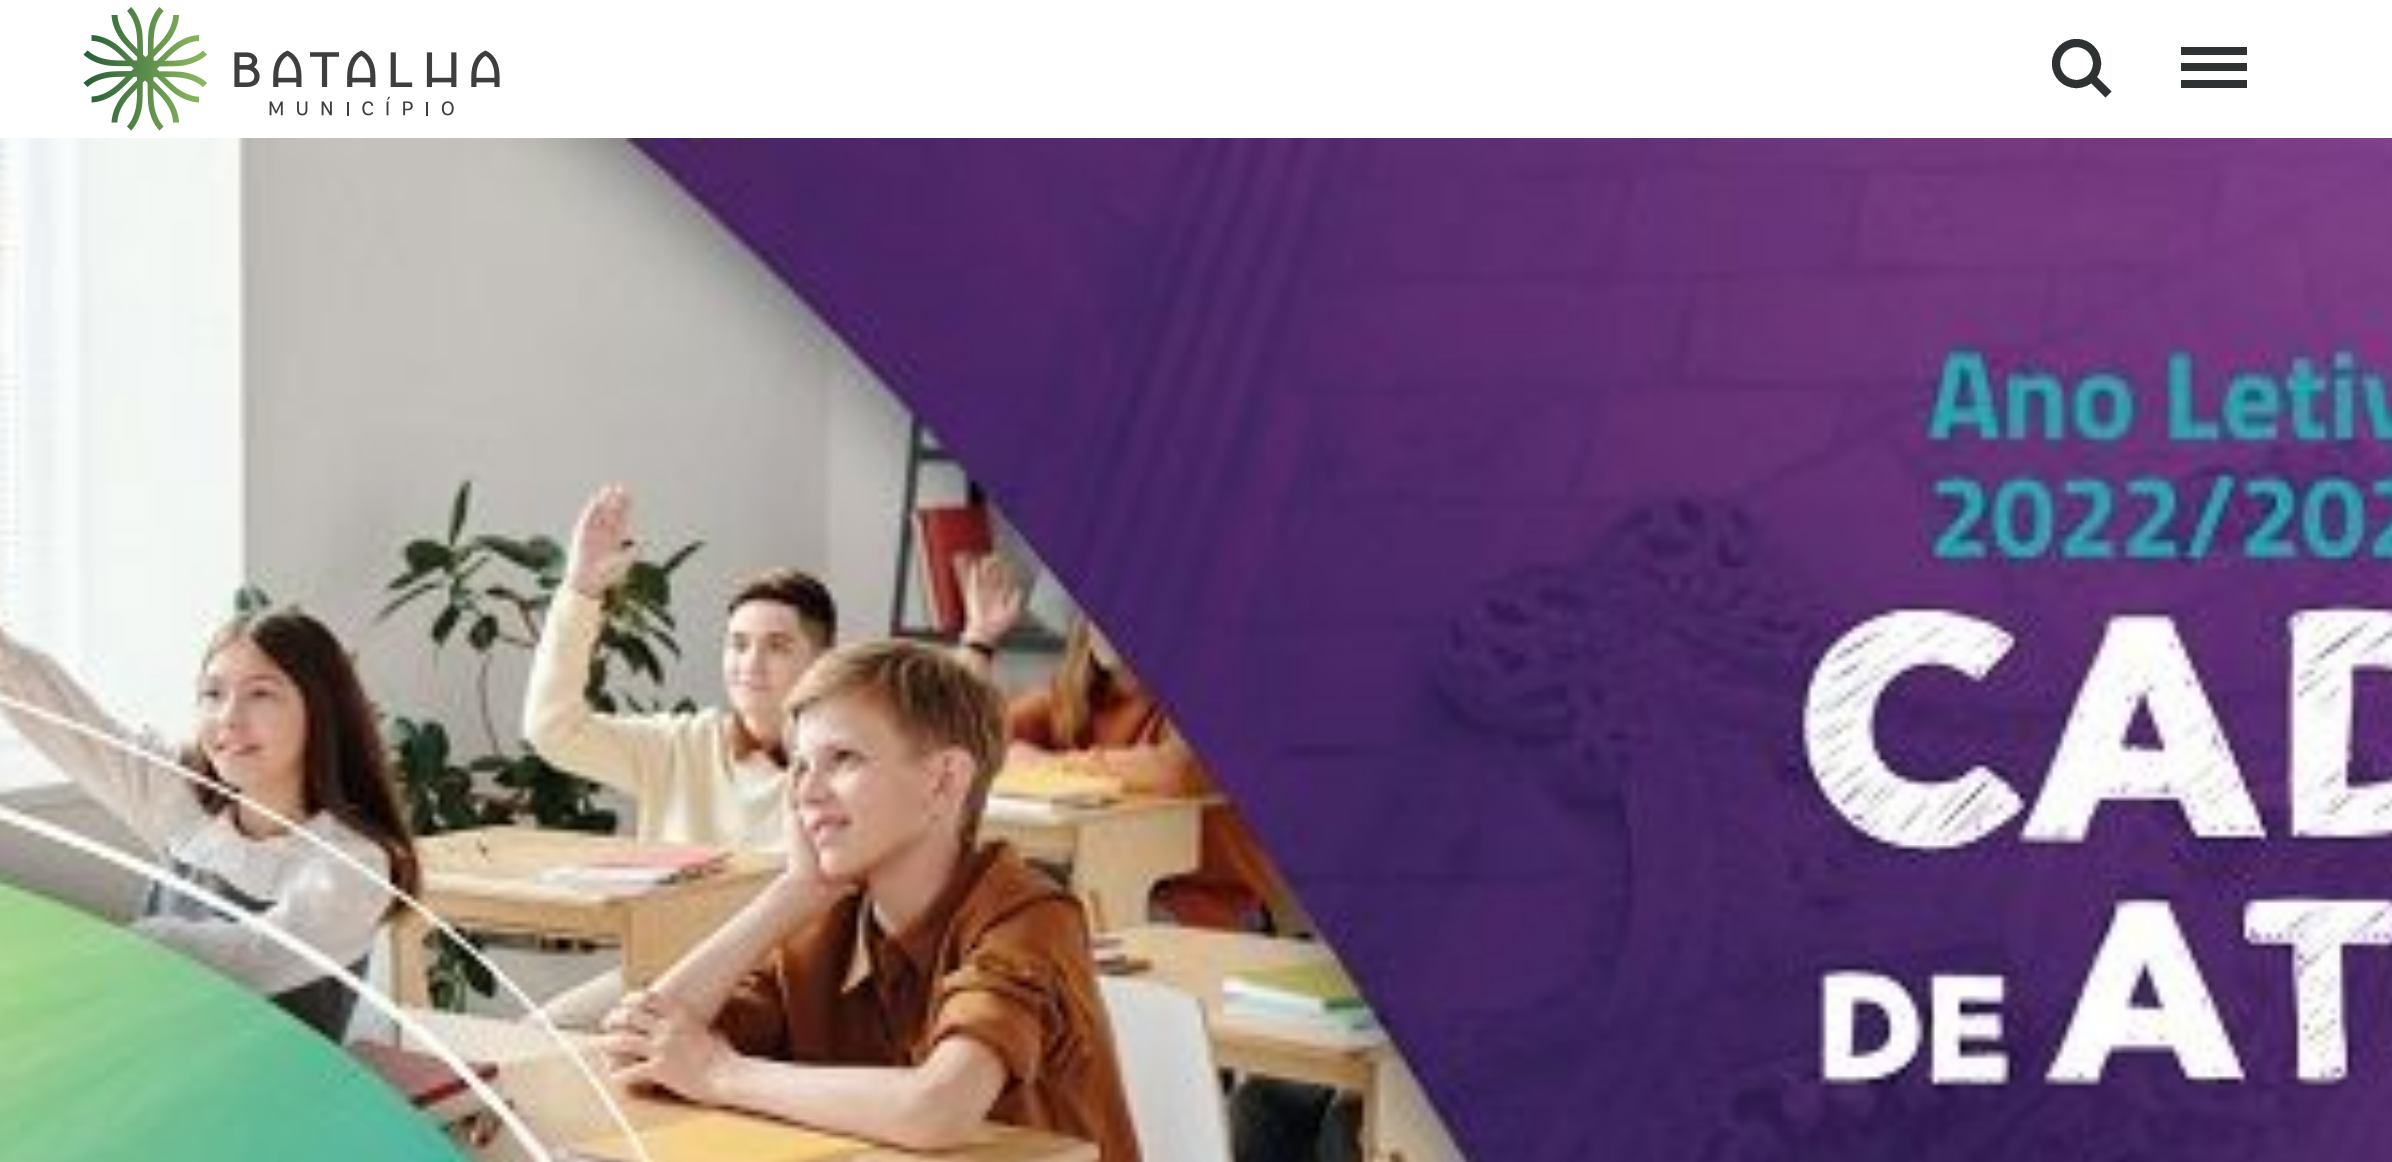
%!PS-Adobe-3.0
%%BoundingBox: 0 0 2392 1162
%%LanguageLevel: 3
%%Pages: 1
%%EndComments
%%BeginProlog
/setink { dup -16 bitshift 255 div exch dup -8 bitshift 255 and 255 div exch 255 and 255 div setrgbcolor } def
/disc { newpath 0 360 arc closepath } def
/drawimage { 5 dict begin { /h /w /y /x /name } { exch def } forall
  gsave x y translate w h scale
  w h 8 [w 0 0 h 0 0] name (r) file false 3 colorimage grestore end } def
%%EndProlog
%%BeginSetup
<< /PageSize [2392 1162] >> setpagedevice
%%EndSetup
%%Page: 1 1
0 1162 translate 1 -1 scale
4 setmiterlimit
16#FFFFFF setink
0 0 2392 1162 rectfill
(img1.raw) 83 7 417 124 drawimage
16#2E3233 setink
8 setlinewidth
2076.5 63.5 20.5 disc stroke
2096 76 moveto 2111.5 91.5 lineto 2105.5 97.5 lineto 2090 82 lineto closepath fill
[
    [2181 63 66 8 16#2E3233]
    [2181 47 66 8 16#2E3233]
    [2181 80 66 8 16#2E3233]
] { aload pop setink rectfill } forall
(img2.raw) 0 138 2392 1024 drawimage
showpage
%%EOF
